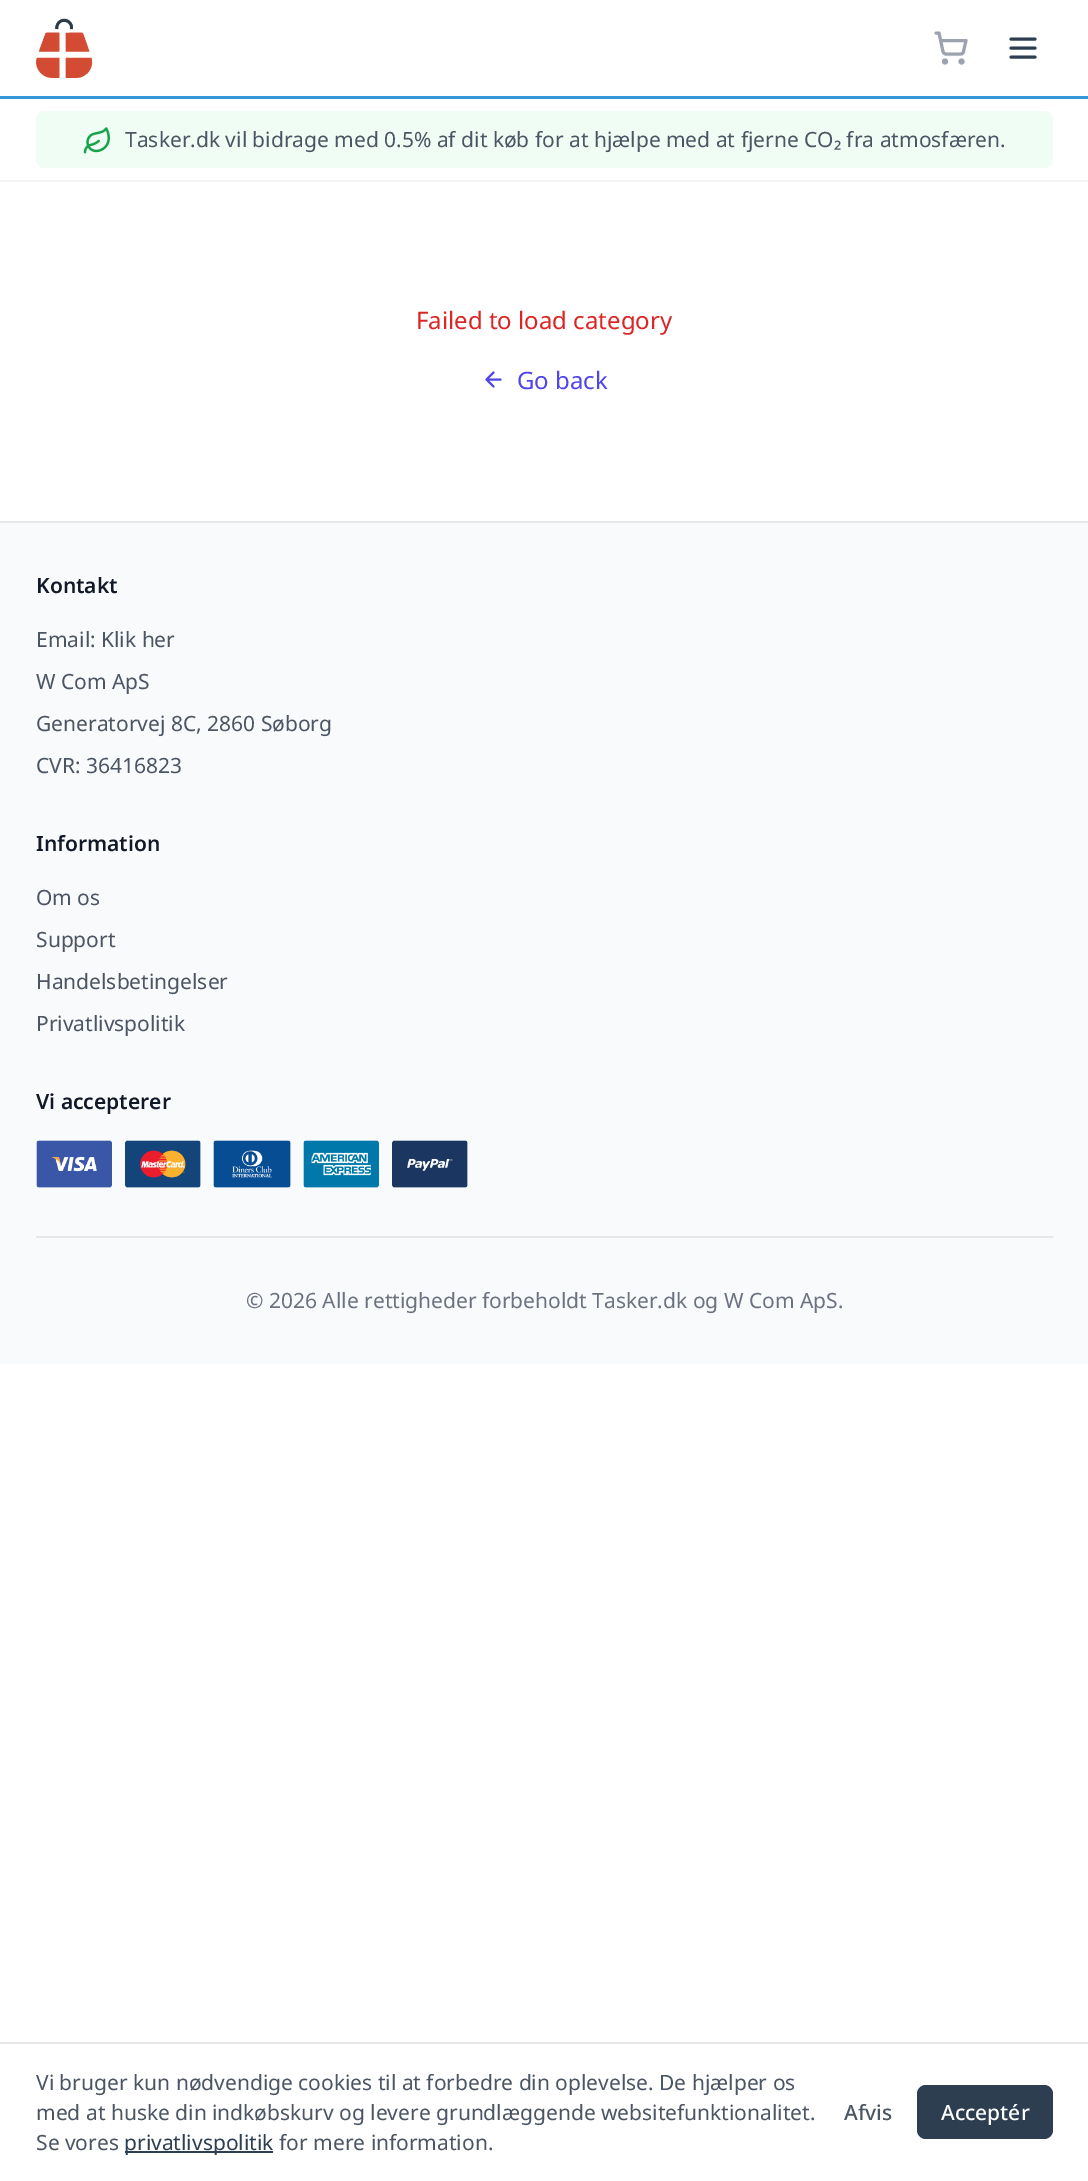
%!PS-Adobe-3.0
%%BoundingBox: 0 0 1088 2181
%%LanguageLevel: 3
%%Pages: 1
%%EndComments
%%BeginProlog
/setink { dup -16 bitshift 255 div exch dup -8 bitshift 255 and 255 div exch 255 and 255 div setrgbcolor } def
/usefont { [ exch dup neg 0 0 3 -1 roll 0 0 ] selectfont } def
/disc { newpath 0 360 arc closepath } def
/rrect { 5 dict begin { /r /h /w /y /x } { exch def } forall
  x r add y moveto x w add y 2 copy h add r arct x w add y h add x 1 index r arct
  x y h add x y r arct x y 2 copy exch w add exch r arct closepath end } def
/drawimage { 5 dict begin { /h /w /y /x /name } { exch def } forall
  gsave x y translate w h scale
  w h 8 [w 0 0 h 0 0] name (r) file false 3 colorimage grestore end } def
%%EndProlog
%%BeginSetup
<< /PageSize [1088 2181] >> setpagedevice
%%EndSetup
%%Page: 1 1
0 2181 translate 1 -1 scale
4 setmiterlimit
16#FFFFFF setink
0 0 1088 2181 rectfill
16#3498DB setink
0 96 1088 3 rectfill
(img1.raw) 36 18 57 60 drawimage
16#9CA3AF setink
3 setlinewidth
945 61.5 1.5 disc stroke
961.5 61.5 1.5 disc stroke
1 setlinecap
1 setlinejoin
936 33 moveto 939 33 lineto 943 51.5 lineto 943.5 53 944.5 54 946 54 curveto 960.5 54 lineto 962 54 963.5 53 963.5 51.5 curveto 966 40.5 lineto 940.5 40.5 lineto stroke
16#2C3E50 setink
1011 48 moveto 1035 48 lineto 1011 39 moveto 1035 39 lineto 1011 57 moveto 1035 57 lineto stroke
16#F3F4F6 setink
0 180 1088 2 rectfill
16#F0FDF4 setink
36 111 1017 57 9 rrect fill
(img2.raw) 83 127 27 27 drawimage
/NotoSans-Regular 21 usefont
16#4B5563 setink
125 147 moveto (Tasker.dk vil bidrage med 0.5% af dit køb for at hjælpe med at fjerne CO₂ fra atmosfæren.) show
/NotoSans-Regular 24 usefont
16#DC2626 setink
416 329 moveto (Failed to load category) show
16#4F46E5 setink
2 setlinewidth
493.5 386.5 moveto 486.5 379.5 lineto 493.5 372.5 lineto 500.5 379.5 moveto 486.5 379.5 lineto stroke
517 389 moveto (Go back) show
16#F9FAFB setink
0 523 1088 841 rectfill
16#E5E7EB setink
0 521 1088 2 rectfill
/NotoSans-SemiBold 21 usefont
16#111827 setink
36 593 moveto (Kontakt) show
/NotoSans-Regular 21 usefont
16#4B5563 setink
[
    [(Email: Klik her) 36 647]
    [(W Com ApS) 36 689]
    [(Generatorvej 8C, 2860 Søborg) 36 731]
    [(CVR: 36416823) 36 773]
] { aload pop moveto show } forall
/NotoSans-SemiBold 21 usefont
16#111827 setink
36 851 moveto (Information) show
/NotoSans-Regular 21 usefont
16#4B5563 setink
[
    [(Om os) 36 905]
    [(Support) 36 947]
    [(Handelsbetingelser) 36 989]
    [(Privatlivspolitik) 36 1031]
] { aload pop moveto show } forall
/NotoSans-SemiBold 21 usefont
16#111827 setink
36 1109 moveto (Vi accepterer) show
(img3.raw) 36 1140 76 48 drawimage
(img4.raw) 125 1140 76 48 drawimage
(img5.raw) 213 1140 78 48 drawimage
(img6.raw) 303 1140 76 48 drawimage
(img7.raw) 392 1140 76 48 drawimage
16#E5E7EB setink
36 1236 1017 2 rectfill
/NotoSans-Regular 21 usefont
16#6B7280 setink
246 1308 moveto (© 2026 Alle rettigheder forbeholdt Tasker.dk og W Com ApS.) show
16#E5E7EB setink
0 2042 1088 2 rectfill
16#4B5563 setink
[
    [(Vi bruger kun nødvendige cookies til at forbedre din oplevelse. De hjælper os) 36 2090]
    [(med at huske din indkøbskurv og levere grundlæggende websitefunktionalitet.) 36 2120]
    [(Se vores) 36 2150]
] { aload pop moveto show } forall
16#2C3E50 setink
125 2151 148 2 rectfill
124 2150 moveto (privatlivspolitik) show
16#4B5563 setink
279 2150 moveto (for mere information.) show
/NotoSans-Medium 21 usefont
844 2120 moveto (Afvis) show
16#2C3E50 setink
917 2085 136 54 9 rrect fill
16#FFFFFF setink
941 2120 moveto (Acceptér) show
showpage
%%EOF
